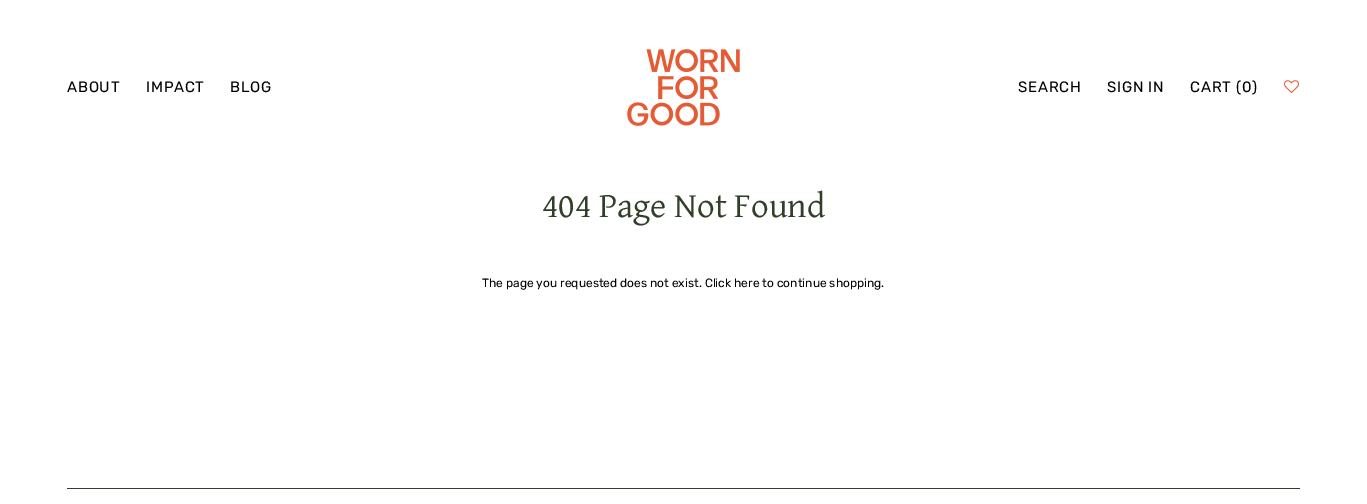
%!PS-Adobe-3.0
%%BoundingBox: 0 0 1367 504
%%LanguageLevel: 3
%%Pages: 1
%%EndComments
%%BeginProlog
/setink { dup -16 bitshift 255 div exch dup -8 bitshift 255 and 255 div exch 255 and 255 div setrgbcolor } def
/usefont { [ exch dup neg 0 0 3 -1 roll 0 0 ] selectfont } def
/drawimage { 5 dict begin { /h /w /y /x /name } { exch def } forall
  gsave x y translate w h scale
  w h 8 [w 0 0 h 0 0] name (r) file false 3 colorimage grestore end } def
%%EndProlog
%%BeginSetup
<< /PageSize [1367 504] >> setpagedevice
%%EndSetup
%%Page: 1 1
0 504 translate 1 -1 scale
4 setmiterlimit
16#FFFFFF setink
0 0 1367 504 rectfill
/Rubik-Light 15 usefont
16#000000 setink
67 92 moveto 0.75 0 (ABOUT) ashow
146 92 moveto 0.75 0 (IMPACT) ashow
230 92 moveto 0.75 0 (BLOG) ashow
(img1.raw) 627 49 113 77 drawimage
1018 92 moveto 0.75 0 (SEARCH) ashow
1107 92 moveto 0.75 0 (SIGN IN) ashow
1190 92 moveto 0.75 0 (CART \(0\)) ashow
(img2.raw) 1284 80 15 13 drawimage
/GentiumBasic-Regular 35 usefont
16#303F28 setink
542 217 moveto (404 Page Not Found) show
/Rubik-Light 12 usefont
16#000000 setink
482 287 moveto (The page you requested does not exist. Click here to continue shopping.) show
16#303F28 setink
67 488 1233 1 rectfill
showpage
%%EOF
